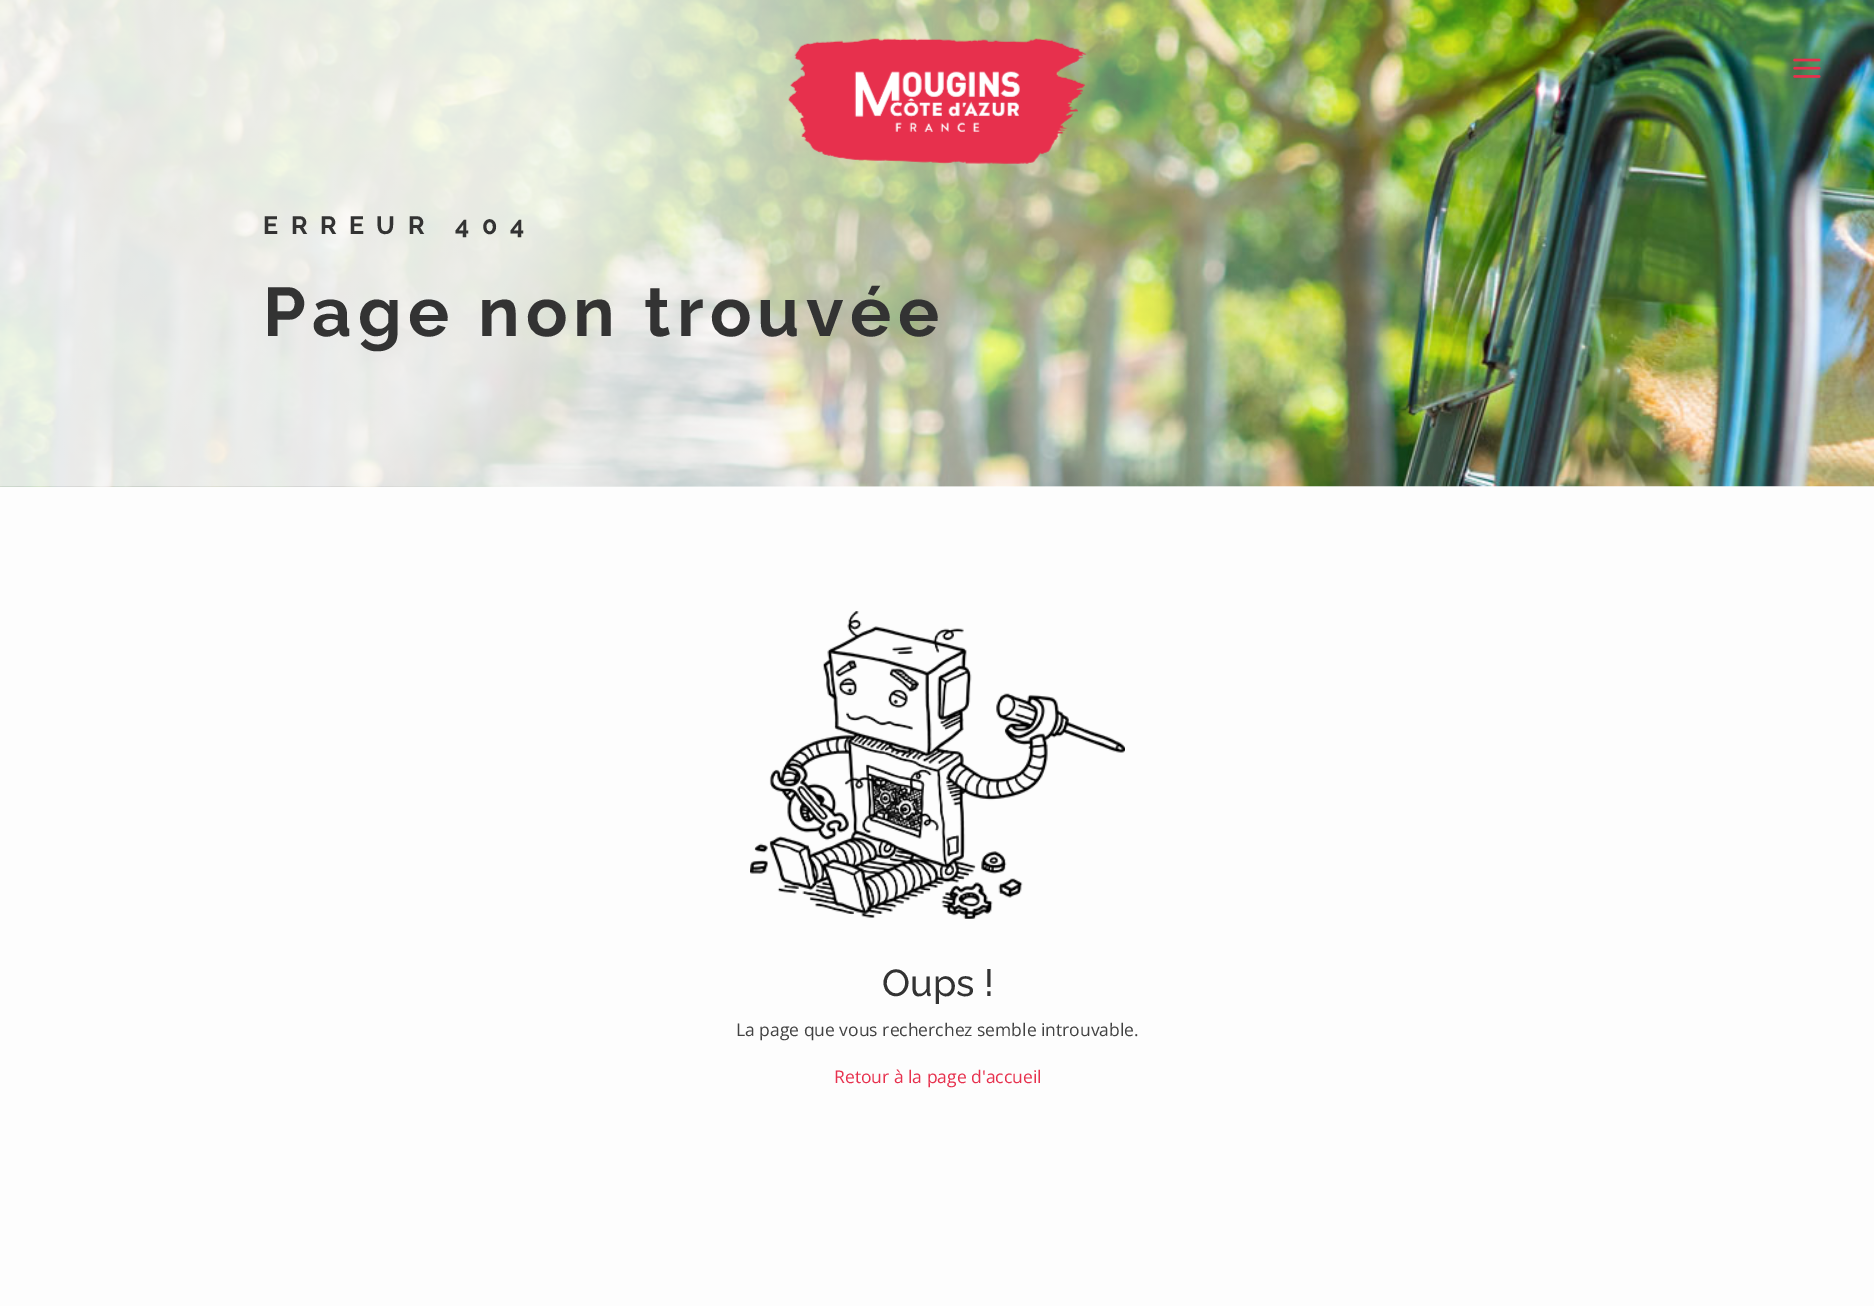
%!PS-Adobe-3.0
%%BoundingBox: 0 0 1874 1306
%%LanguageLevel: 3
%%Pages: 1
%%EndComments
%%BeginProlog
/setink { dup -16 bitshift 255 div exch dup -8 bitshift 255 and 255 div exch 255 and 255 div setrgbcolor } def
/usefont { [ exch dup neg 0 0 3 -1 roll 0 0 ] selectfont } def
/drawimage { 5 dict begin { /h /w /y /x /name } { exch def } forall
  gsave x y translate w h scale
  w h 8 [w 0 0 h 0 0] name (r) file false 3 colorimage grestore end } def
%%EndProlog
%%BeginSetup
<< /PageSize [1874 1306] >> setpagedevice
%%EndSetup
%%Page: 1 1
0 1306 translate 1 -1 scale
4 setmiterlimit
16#FDFDFD setink
0 0 1874 1306 rectfill
(img3.raw) 0 0 1874 487 drawimage
(img1.raw) 788 38 299 126 drawimage
(img2.raw) 1793 58 28 20 drawimage
/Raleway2-Thin 25 usefont
16#333333 setink
263 234 moveto 12.5 0 (ERREUR 404) ashow
/Raleway2-Thin 68.75 usefont
263 336 moveto 6.25 0 (Page non trouvée) ashow
(img4.raw) 750 611 375 308 drawimage
/Raleway-Thin 37.5 usefont
882 996 moveto (Oups !) show
/OpenSans-Regular 17.5 usefont
16#424242 setink
736 1036 moveto (La page que vous recherchez semble introuvable.) show
16#E7304D setink
834 1083 moveto (Retour à la page d'accueil) show
showpage
%%EOF
